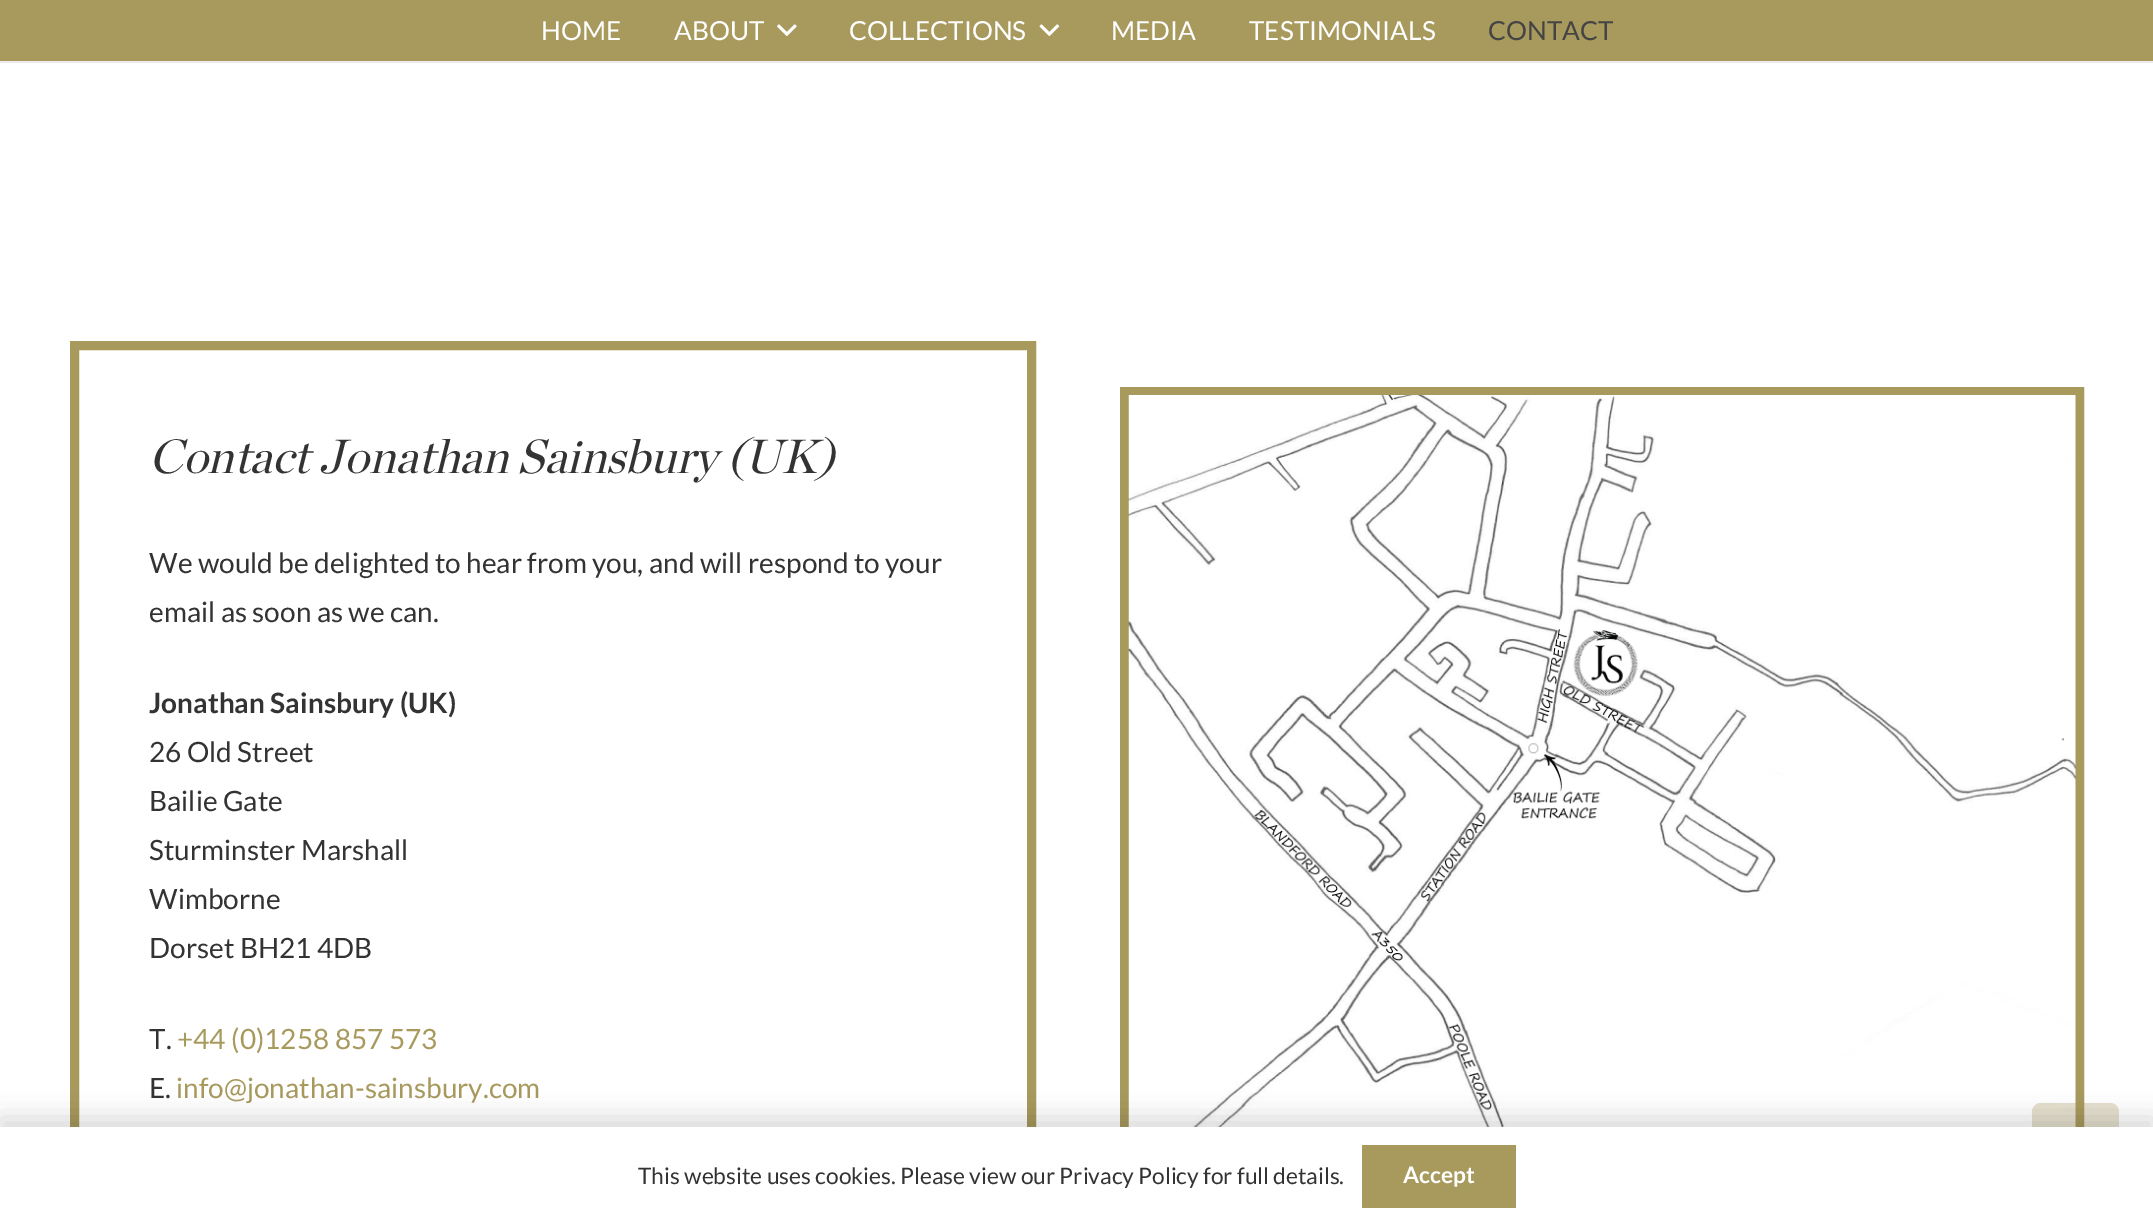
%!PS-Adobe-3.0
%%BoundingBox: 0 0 2153 1225
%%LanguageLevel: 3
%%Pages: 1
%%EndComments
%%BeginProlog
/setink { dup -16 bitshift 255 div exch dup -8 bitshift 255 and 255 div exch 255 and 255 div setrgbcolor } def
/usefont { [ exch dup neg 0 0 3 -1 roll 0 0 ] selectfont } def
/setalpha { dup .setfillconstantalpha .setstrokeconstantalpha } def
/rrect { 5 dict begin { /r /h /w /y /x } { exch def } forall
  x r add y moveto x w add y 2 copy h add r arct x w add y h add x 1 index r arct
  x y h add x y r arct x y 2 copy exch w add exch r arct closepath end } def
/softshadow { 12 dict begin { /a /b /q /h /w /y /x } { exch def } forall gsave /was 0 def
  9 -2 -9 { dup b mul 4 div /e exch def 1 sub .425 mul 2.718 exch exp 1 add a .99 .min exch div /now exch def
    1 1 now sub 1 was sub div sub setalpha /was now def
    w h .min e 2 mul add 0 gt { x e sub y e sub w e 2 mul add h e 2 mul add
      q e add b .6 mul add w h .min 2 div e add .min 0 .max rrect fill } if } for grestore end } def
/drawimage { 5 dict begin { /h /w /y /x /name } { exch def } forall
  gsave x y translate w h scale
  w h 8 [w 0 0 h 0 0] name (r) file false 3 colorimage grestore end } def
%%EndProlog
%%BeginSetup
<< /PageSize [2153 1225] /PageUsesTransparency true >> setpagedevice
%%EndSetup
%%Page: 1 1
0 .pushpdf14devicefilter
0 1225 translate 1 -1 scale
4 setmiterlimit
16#FFFFFF setink
0 0 2153 1225 rectfill
16#EBEBEB setink
0 61 2153 2 rectfill
16#A8995D setink
0 0 2153 61 rectfill
/Lato-Regular 26.25 usefont
16#FFFFFF setink
541 40 moveto (HOME) show
674 40 moveto (ABOUT) show
(img1.raw) 777 24 20 12 drawimage
849 40 moveto (COLLECTIONS) show
(img2.raw) 1039 24 21 12 drawimage
1111 40 moveto (MEDIA) show
1249 40 moveto (TESTIMONIALS) show
16#444444 setink
1488 40 moveto (CONTACT) show
16#A8995D setink
9 setlinewidth
74.5 345.5 957 842 rectstroke
/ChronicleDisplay-Italic 47.6 usefont
16#333333 setink
149 473 moveto (Contact Jonathan Sainsbury \(UK\)) show
/Lato-Regular 28 usefont
149 573 moveto (We would be delighted to hear from you, and will respond to your) show
149 622 moveto (email as soon as we can.) show
/Lato-Bold 28 usefont
149 713 moveto (Jonathan Sainsbury \(UK\)) show
/Lato-Regular 28 usefont
[
    [(26 Old Street) 149 762]
    [(Bailie Gate) 149 811]
    [(Sturminster Marshall) 149 860]
    [(Wimborne) 149 909]
    [(Dorset BH21 4DB) 149 958]
    [(T.) 149 1049]
] { aload pop moveto show } forall
16#A8995D setink
177 1049 moveto (+44 \(0\)1258 857 573) show
16#333333 setink
149 1098 moveto (E.) show
16#A8995D setink
176 1098 moveto (info@jonathan-sainsbury.com) show
1124.5 391.5 955 750 rectstroke
(img3.raw) 1128 395 948 732 drawimage
0.3 setalpha
2032 1103 87 87 9 rrect fill
1 setalpha
16#000000 setink
0 1118 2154 98 0 13 0.15 softshadow
16#FFFFFF setink
0 1127 2153 98 rectfill
/Lato-Regular 22.75 usefont
16#333333 setink
638 1184 moveto (This website uses cookies. Please view our Privacy Policy for full details.) show
16#A8995D setink
1362 1145 154 63 rectfill
/Lato-Bold 22.75 usefont
16#FFFFFF setink
1403 1183 moveto (Accept) show
.poppdf14devicefilter showpage
%%EOF
